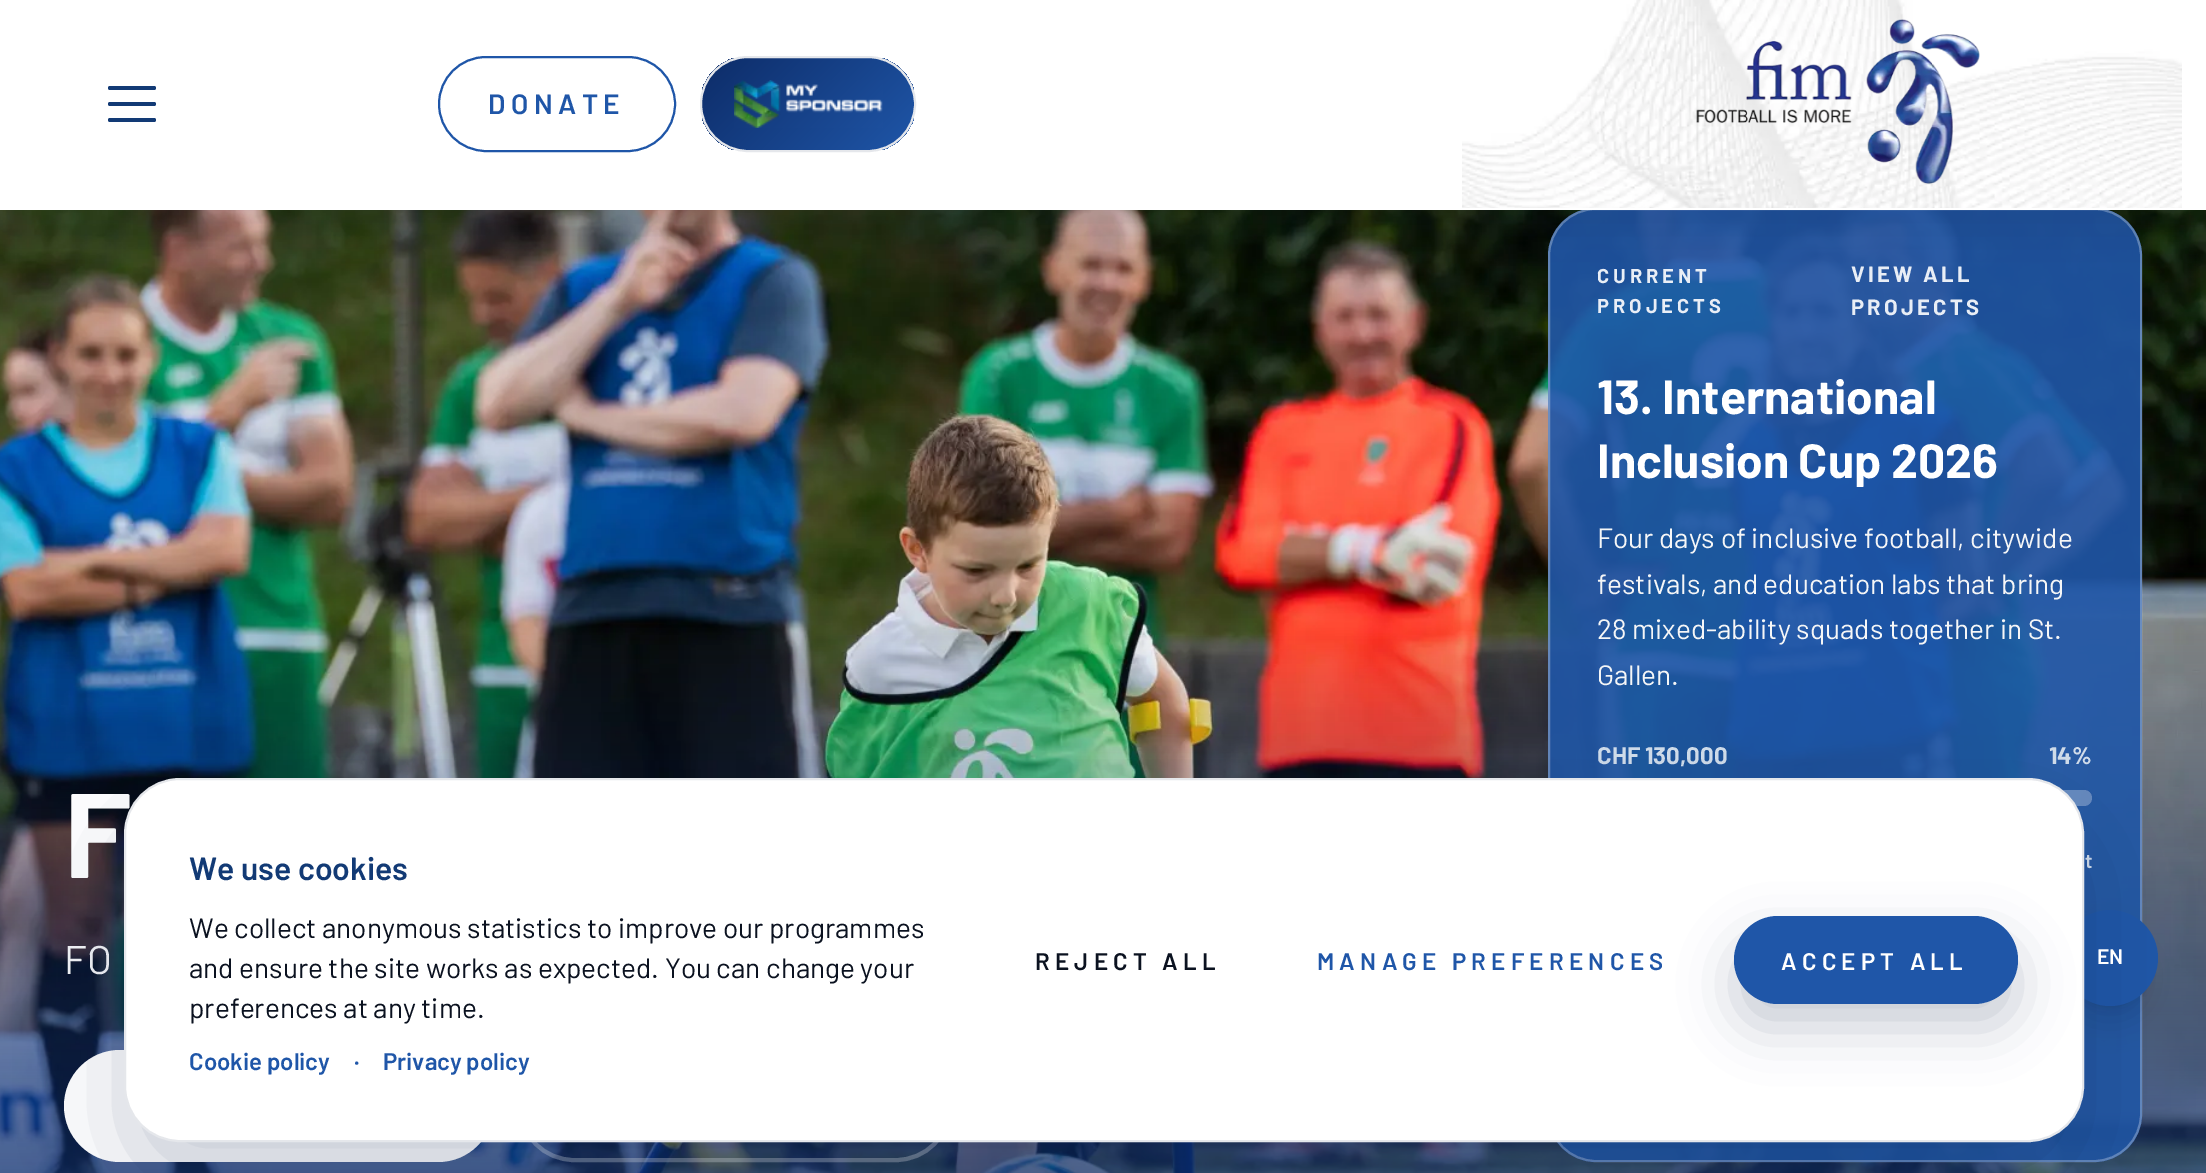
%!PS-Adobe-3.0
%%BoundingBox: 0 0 2206 1173
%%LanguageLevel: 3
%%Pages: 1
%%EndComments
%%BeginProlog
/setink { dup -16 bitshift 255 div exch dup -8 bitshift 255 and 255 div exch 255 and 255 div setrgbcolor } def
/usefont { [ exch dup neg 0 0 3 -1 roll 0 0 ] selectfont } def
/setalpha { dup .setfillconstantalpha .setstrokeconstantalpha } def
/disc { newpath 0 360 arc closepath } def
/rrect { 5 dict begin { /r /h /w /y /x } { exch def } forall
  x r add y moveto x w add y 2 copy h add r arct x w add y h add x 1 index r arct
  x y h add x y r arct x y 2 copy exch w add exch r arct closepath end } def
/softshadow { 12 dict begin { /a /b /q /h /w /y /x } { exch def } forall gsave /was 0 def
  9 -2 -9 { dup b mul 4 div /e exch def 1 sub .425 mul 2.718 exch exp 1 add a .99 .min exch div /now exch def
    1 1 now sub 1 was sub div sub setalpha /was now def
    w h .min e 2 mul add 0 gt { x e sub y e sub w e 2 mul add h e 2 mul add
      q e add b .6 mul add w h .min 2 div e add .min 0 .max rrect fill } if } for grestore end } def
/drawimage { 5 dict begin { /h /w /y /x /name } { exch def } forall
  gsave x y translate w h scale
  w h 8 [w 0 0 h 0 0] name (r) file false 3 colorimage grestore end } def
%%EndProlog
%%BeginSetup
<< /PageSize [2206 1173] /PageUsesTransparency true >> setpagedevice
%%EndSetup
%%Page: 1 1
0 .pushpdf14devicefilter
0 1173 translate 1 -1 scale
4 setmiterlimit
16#FFFFFF setink
0 0 2206 1173 rectfill
(img4.raw) 0 210 2206 963 drawimage
0.9 setalpha
16#1F56A8 setink
1548 208 594 954 48 rrect fill
0.3 setalpha
16#FFFFFF setink
2 setlinewidth
1549 209 592 952 47 rrect stroke
1 setalpha
16#0C1E48 setink
0 20 2206 210 0 26 0.12 softshadow
16#FFFFFF setink
0 0 2206 210 rectfill
16#123A75 setink
108 86 48 4 2 rrect fill
108 102 48 4 2 rrect fill
108 118 48 4 2 rrect fill
16#1F56A8 setink
439 57 236 94 47 rrect stroke
/Barlow-SemiBold 28 usefont
488 114 moveto 5.5 0 (DONATE) ashow
gsave
700 56 216 96 48 rrect clip newpath
gsave 702 58 moveto 914 58 lineto 914 150 lineto 702 150 lineto closepath clip newpath
<< /ShadingType 2 /ColorSpace /DeviceRGB /Coords [732 28 884 180] /Extend [true true] /Function << /FunctionType 2 /Domain [0 1] /C0 [0.051 0.173 0.408] /C1 [0.122 0.337 0.659] /N 1 >> >> shfill grestore
grestore
16#E5E7EB setink
701 57 214 94 47 rrect stroke
(img1.raw) 734 80 149 48 drawimage
(img3.raw) 1462 0 720 208 drawimage
(img2.raw) 1696 19 284 165 drawimage
/Barlow-Bold 120 usefont
16#FFFFFF setink
64 878 moveto -3 0 (F) ashow
/Barlow-Regular 40 usefont
16#F5F6F7 setink
64 974 moveto (FO) show
16#FFFFFF setink
64 1050 430 112 56 rrect fill
0.3 setalpha
4 setlinewidth
520 1052 430 108 54 rrect stroke
/Barlow-Bold 20 usefont
1 setalpha
16#E9EEF6 setink
1597 283 moveto 4 0 (CURRENT) ashow
1597 313 moveto 4 0 (PROJECTS) ashow
/Barlow-Bold 22 usefont
1851 282 moveto 3.25 0 (VIEW ALL) ashow
1851 315 moveto 3.25 0 (PROJECTS) ashow
/Barlow-Bold 48 usefont
16#FFFFFF setink
1597 414 moveto (13. International) show
1597 478 moveto (Inclusion Cup 2026) show
/Barlow-Regular 28 usefont
16#F5F6F7 setink
[
    [(Four days of inclusive football, citywide) 1597 548]
    [(festivals, and education labs that bring) 1597 594]
    [(28 mixed-ability squads together in St.) 1597 639]
    [(Gallen.) 1597 685]
] { aload pop moveto show } forall
/Barlow-Bold 24 usefont
16#D2DDEB setink
1597 764 moveto (CHF 130,000) show
2049 764 moveto (14%) show
0.3 setalpha
16#FFFFFF setink
1598 790 494 16 8 rrect fill
/Barlow-SemiBold 20 usefont
1 setalpha
16#D2DDEB setink
2085 868 moveto (t) show
16#000000 setink
2070 926 80 80 40 6 0.1 softshadow
2068 936 84 84 42 15 0.1 softshadow
16#1F56A8 setink
2110 958 48 disc fill
16#0A1E48 setink
124 822 1960 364 56 50 0.22 softshadow
16#FFFFFF setink
125 779 1958 362 55 rrect gsave fill grestore
16#E5E7EB setink
2 setlinewidth
stroke
/Barlow-SemiBold 32 usefont
16#123A75 setink
189 880 moveto (We use cookies) show
/Barlow-Regular 28 usefont
16#0B1220 setink
[
    [(We collect anonymous statistics to improve our programmes) 189 938]
    [(and ensure the site works as expected. You can change your) 189 978]
    [(preferences at any time.) 189 1018]
] { aload pop moveto show } forall
/Barlow-SemiBold 24 usefont
16#1F56A8 setink
[
    [(Cookie policy) 189 1070]
    [(·) 354 1070]
    [(Privacy policy) 383 1070]
] { aload pop moveto show } forall
16#0B1220 setink
1035 970 moveto 5.25 0 (REJECT ALL) ashow
16#1F56A8 setink
1317 970 moveto 5.25 0 (MANAGE PREFERENCES) ashow
16#0C2242 setink
1734 940 284 88 44 26 0.22 softshadow
16#1F56A8 setink
1734 916 284 88 44 rrect fill
16#FFFFFF setink
1781 970 moveto 5.25 0 (ACCEPT ALL) ashow
/Barlow-SemiBold 21 usefont
2097 964 moveto (EN) show
.poppdf14devicefilter showpage
%%EOF
